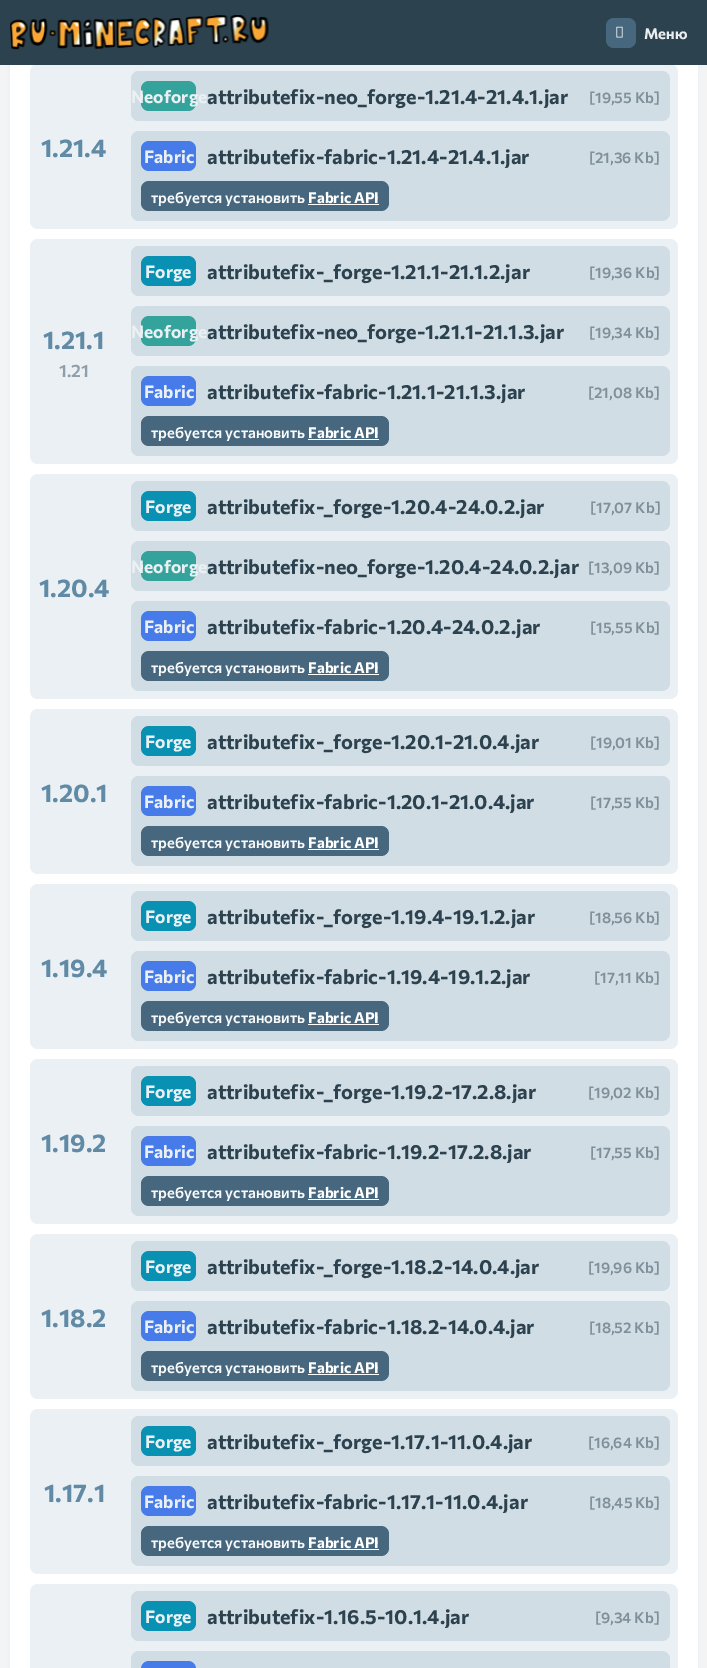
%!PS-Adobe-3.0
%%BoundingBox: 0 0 707 1668
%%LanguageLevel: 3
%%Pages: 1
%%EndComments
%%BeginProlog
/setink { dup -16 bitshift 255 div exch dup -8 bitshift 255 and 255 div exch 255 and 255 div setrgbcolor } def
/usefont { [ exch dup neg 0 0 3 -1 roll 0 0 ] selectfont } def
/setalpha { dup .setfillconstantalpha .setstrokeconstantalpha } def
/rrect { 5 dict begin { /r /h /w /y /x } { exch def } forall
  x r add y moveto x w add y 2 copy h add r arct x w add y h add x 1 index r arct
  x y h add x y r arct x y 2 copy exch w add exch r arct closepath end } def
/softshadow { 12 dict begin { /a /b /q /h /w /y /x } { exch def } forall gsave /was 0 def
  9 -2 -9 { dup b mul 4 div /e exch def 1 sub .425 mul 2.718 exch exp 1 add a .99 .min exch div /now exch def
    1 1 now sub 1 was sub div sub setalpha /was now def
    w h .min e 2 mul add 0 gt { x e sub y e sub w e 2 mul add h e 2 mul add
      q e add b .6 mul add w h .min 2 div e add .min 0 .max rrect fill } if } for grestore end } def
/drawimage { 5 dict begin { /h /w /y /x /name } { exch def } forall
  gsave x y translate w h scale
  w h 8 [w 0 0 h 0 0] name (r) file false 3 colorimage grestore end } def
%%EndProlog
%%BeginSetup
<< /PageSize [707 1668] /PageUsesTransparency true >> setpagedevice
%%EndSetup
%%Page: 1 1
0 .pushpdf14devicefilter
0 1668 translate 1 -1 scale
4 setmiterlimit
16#F4F4F5 setink
0 0 707 1668 rectfill
16#57809B setink
11 -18 685 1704 6 4 0.1 softshadow
16#FFFFFF setink
10 65 688 1603 rectfill
16#EAF0F3 setink
30 64 648 165 8 rrect fill
16#2D424F setink
0 0 707 65 rectfill
(img1.raw) 10 15 259 35 drawimage
16#46677D setink
606 18 30 30 8 rrect fill
(img2.raw) 616 26 7 12 drawimage
/Commissioner-Bold 15 usefont
16#EAECED setink
644 39 moveto (Меню) show
/Commissioner-Bold 25 usefont
16#608AA5 setink
41 157 moveto (1.21.4) show
16#D1DDE5 setink
131 71 539 50 8 rrect fill
16#34A39B setink
141 81 55 30 8 rrect fill
/Commissioner-Bold 17.5 usefont
16#EAF0F3 setink
131 103 moveto (Neoforge) show
/Commissioner-Bold 20 usefont
16#2D424F setink
207 104 moveto (attributefix-neo_forge-1.21.4-21.4.1.jar) show
/Commissioner-SemiBold 15 usefont
16#7F909A setink
589 103 moveto ([19,55 Kb]) show
16#D1DDE5 setink
131 131 539 90 8 rrect fill
16#477BEA setink
141 141 55 30 8 rrect fill
/Commissioner-Bold 17.5 usefont
16#EAF0F3 setink
144 163 moveto (Fabric) show
/Commissioner-Bold 20 usefont
16#2D424F setink
207 164 moveto (attributefix-fabric-1.21.4-21.4.1.jar) show
/Commissioner-SemiBold 15 usefont
16#7F909A setink
589 163 moveto ([21,36 Kb]) show
16#46677D setink
141 181 248 30 8 rrect fill
16#F8FAFC setink
151 203 moveto (требуется установить) show
/Commissioner-Bold 15 usefont
16#FFFFFF setink
308 203 moveto (Fabric API) show
308 204 71 1 rectfill
16#EAF0F3 setink
30 239 648 225 8 rrect fill
/Commissioner-Bold 25 usefont
16#608AA5 setink
43 349 moveto (1.21.1) show
/Commissioner-SemiBold 17.5 usefont
16#8F9EA8 setink
59 377 moveto (1.21) show
16#D1DDE5 setink
131 246 539 50 8 rrect fill
16#0891B2 setink
141 256 55 30 8 rrect fill
/Commissioner-Bold 17.5 usefont
16#EAF0F3 setink
145 278 moveto (Forge) show
/Commissioner-Bold 20 usefont
16#2D424F setink
207 279 moveto (attributefix-_forge-1.21.1-21.1.2.jar) show
/Commissioner-SemiBold 15 usefont
16#7F909A setink
589 278 moveto ([19,36 Kb]) show
16#D1DDE5 setink
131 306 539 50 8 rrect fill
16#34A39B setink
141 316 55 30 8 rrect fill
/Commissioner-Bold 17.5 usefont
16#EAF0F3 setink
131 338 moveto (Neoforge) show
/Commissioner-Bold 20 usefont
16#2D424F setink
207 339 moveto (attributefix-neo_forge-1.21.1-21.1.3.jar) show
/Commissioner-SemiBold 15 usefont
16#7F909A setink
589 338 moveto ([19,34 Kb]) show
16#D1DDE5 setink
131 366 539 90 8 rrect fill
16#477BEA setink
141 376 55 30 8 rrect fill
/Commissioner-Bold 17.5 usefont
16#EAF0F3 setink
144 398 moveto (Fabric) show
/Commissioner-Bold 20 usefont
16#2D424F setink
207 399 moveto (attributefix-fabric-1.21.1-21.1.3.jar) show
/Commissioner-SemiBold 15 usefont
16#7F909A setink
588 398 moveto ([21,08 Kb]) show
16#46677D setink
141 416 248 30 8 rrect fill
16#F8FAFC setink
151 438 moveto (требуется установить) show
/Commissioner-Bold 15 usefont
16#FFFFFF setink
308 438 moveto (Fabric API) show
308 439 71 1 rectfill
16#EAF0F3 setink
30 474 648 225 8 rrect fill
/Commissioner-Bold 25 usefont
16#608AA5 setink
39 597 moveto (1.20.4) show
16#D1DDE5 setink
131 481 539 50 8 rrect fill
16#0891B2 setink
141 491 55 30 8 rrect fill
/Commissioner-Bold 17.5 usefont
16#EAF0F3 setink
145 513 moveto (Forge) show
/Commissioner-Bold 20 usefont
16#2D424F setink
207 514 moveto (attributefix-_forge-1.20.4-24.0.2.jar) show
/Commissioner-SemiBold 15 usefont
16#7F909A setink
590 513 moveto ([17,07 Kb]) show
16#D1DDE5 setink
131 541 539 50 8 rrect fill
16#34A39B setink
141 551 55 30 8 rrect fill
/Commissioner-Bold 17.5 usefont
16#EAF0F3 setink
131 573 moveto (Neoforge) show
/Commissioner-Bold 20 usefont
16#2D424F setink
207 574 moveto (attributefix-neo_forge-1.20.4-24.0.2.jar) show
/Commissioner-SemiBold 15 usefont
16#7F909A setink
588 573 moveto ([13,09 Kb]) show
16#D1DDE5 setink
131 601 539 90 8 rrect fill
16#477BEA setink
141 611 55 30 8 rrect fill
/Commissioner-Bold 17.5 usefont
16#EAF0F3 setink
144 633 moveto (Fabric) show
/Commissioner-Bold 20 usefont
16#2D424F setink
207 634 moveto (attributefix-fabric-1.20.4-24.0.2.jar) show
/Commissioner-SemiBold 15 usefont
16#7F909A setink
590 633 moveto ([15,55 Kb]) show
16#46677D setink
141 651 248 30 8 rrect fill
16#F8FAFC setink
151 673 moveto (требуется установить) show
/Commissioner-Bold 15 usefont
16#FFFFFF setink
308 673 moveto (Fabric API) show
308 674 71 1 rectfill
16#EAF0F3 setink
30 709 648 165 8 rrect fill
/Commissioner-Bold 25 usefont
16#608AA5 setink
41 802 moveto (1.20.1) show
16#D1DDE5 setink
131 716 539 50 8 rrect fill
16#0891B2 setink
141 726 55 30 8 rrect fill
/Commissioner-Bold 17.5 usefont
16#EAF0F3 setink
145 748 moveto (Forge) show
/Commissioner-Bold 20 usefont
16#2D424F setink
207 749 moveto (attributefix-_forge-1.20.1-21.0.4.jar) show
/Commissioner-SemiBold 15 usefont
16#7F909A setink
590 748 moveto ([19,01 Kb]) show
16#D1DDE5 setink
131 776 539 90 8 rrect fill
16#477BEA setink
141 786 55 30 8 rrect fill
/Commissioner-Bold 17.5 usefont
16#EAF0F3 setink
144 808 moveto (Fabric) show
/Commissioner-Bold 20 usefont
16#2D424F setink
207 809 moveto (attributefix-fabric-1.20.1-21.0.4.jar) show
/Commissioner-SemiBold 15 usefont
16#7F909A setink
590 808 moveto ([17,55 Kb]) show
16#46677D setink
141 826 248 30 8 rrect fill
16#F8FAFC setink
151 848 moveto (требуется установить) show
/Commissioner-Bold 15 usefont
16#FFFFFF setink
308 848 moveto (Fabric API) show
308 849 71 1 rectfill
16#EAF0F3 setink
30 884 648 165 8 rrect fill
/Commissioner-Bold 25 usefont
16#608AA5 setink
41 977 moveto (1.19.4) show
16#D1DDE5 setink
131 891 539 50 8 rrect fill
16#0891B2 setink
141 901 55 30 8 rrect fill
/Commissioner-Bold 17.5 usefont
16#EAF0F3 setink
145 923 moveto (Forge) show
/Commissioner-Bold 20 usefont
16#2D424F setink
207 924 moveto (attributefix-_forge-1.19.4-19.1.2.jar) show
/Commissioner-SemiBold 15 usefont
16#7F909A setink
589 923 moveto ([18,56 Kb]) show
16#D1DDE5 setink
131 951 539 90 8 rrect fill
16#477BEA setink
141 961 55 30 8 rrect fill
/Commissioner-Bold 17.5 usefont
16#EAF0F3 setink
144 983 moveto (Fabric) show
/Commissioner-Bold 20 usefont
16#2D424F setink
207 984 moveto (attributefix-fabric-1.19.4-19.1.2.jar) show
/Commissioner-SemiBold 15 usefont
16#7F909A setink
594 983 moveto ([17,11 Kb]) show
16#46677D setink
141 1001 248 30 8 rrect fill
16#F8FAFC setink
151 1023 moveto (требуется установить) show
/Commissioner-Bold 15 usefont
16#FFFFFF setink
308 1023 moveto (Fabric API) show
308 1024 71 1 rectfill
16#EAF0F3 setink
30 1059 648 165 8 rrect fill
/Commissioner-Bold 25 usefont
16#608AA5 setink
41 1152 moveto (1.19.2) show
16#D1DDE5 setink
131 1066 539 50 8 rrect fill
16#0891B2 setink
141 1076 55 30 8 rrect fill
/Commissioner-Bold 17.5 usefont
16#EAF0F3 setink
145 1098 moveto (Forge) show
/Commissioner-Bold 20 usefont
16#2D424F setink
207 1099 moveto (attributefix-_forge-1.19.2-17.2.8.jar) show
/Commissioner-SemiBold 15 usefont
16#7F909A setink
588 1098 moveto ([19,02 Kb]) show
16#D1DDE5 setink
131 1126 539 90 8 rrect fill
16#477BEA setink
141 1136 55 30 8 rrect fill
/Commissioner-Bold 17.5 usefont
16#EAF0F3 setink
144 1158 moveto (Fabric) show
/Commissioner-Bold 20 usefont
16#2D424F setink
207 1159 moveto (attributefix-fabric-1.19.2-17.2.8.jar) show
/Commissioner-SemiBold 15 usefont
16#7F909A setink
590 1158 moveto ([17,55 Kb]) show
16#46677D setink
141 1176 248 30 8 rrect fill
16#F8FAFC setink
151 1198 moveto (требуется установить) show
/Commissioner-Bold 15 usefont
16#FFFFFF setink
308 1198 moveto (Fabric API) show
308 1199 71 1 rectfill
16#EAF0F3 setink
30 1234 648 165 8 rrect fill
/Commissioner-Bold 25 usefont
16#608AA5 setink
41 1327 moveto (1.18.2) show
16#D1DDE5 setink
131 1241 539 50 8 rrect fill
16#0891B2 setink
141 1251 55 30 8 rrect fill
/Commissioner-Bold 17.5 usefont
16#EAF0F3 setink
145 1273 moveto (Forge) show
/Commissioner-Bold 20 usefont
16#2D424F setink
207 1274 moveto (attributefix-_forge-1.18.2-14.0.4.jar) show
/Commissioner-SemiBold 15 usefont
16#7F909A setink
588 1273 moveto ([19,96 Kb]) show
16#D1DDE5 setink
131 1301 539 90 8 rrect fill
16#477BEA setink
141 1311 55 30 8 rrect fill
/Commissioner-Bold 17.5 usefont
16#EAF0F3 setink
144 1333 moveto (Fabric) show
/Commissioner-Bold 20 usefont
16#2D424F setink
207 1334 moveto (attributefix-fabric-1.18.2-14.0.4.jar) show
/Commissioner-SemiBold 15 usefont
16#7F909A setink
589 1333 moveto ([18,52 Kb]) show
16#46677D setink
141 1351 248 30 8 rrect fill
16#F8FAFC setink
151 1373 moveto (требуется установить) show
/Commissioner-Bold 15 usefont
16#FFFFFF setink
308 1373 moveto (Fabric API) show
308 1374 71 1 rectfill
16#EAF0F3 setink
30 1409 648 165 8 rrect fill
/Commissioner-Bold 25 usefont
16#608AA5 setink
44 1502 moveto (1.17.1) show
16#D1DDE5 setink
131 1416 539 50 8 rrect fill
16#0891B2 setink
141 1426 55 30 8 rrect fill
/Commissioner-Bold 17.5 usefont
16#EAF0F3 setink
145 1448 moveto (Forge) show
/Commissioner-Bold 20 usefont
16#2D424F setink
207 1449 moveto (attributefix-_forge-1.17.1-11.0.4.jar) show
/Commissioner-SemiBold 15 usefont
16#7F909A setink
588 1448 moveto ([16,64 Kb]) show
16#D1DDE5 setink
131 1476 539 90 8 rrect fill
16#477BEA setink
141 1486 55 30 8 rrect fill
/Commissioner-Bold 17.5 usefont
16#EAF0F3 setink
144 1508 moveto (Fabric) show
/Commissioner-Bold 20 usefont
16#2D424F setink
207 1509 moveto (attributefix-fabric-1.17.1-11.0.4.jar) show
/Commissioner-SemiBold 15 usefont
16#7F909A setink
589 1508 moveto ([18,45 Kb]) show
16#46677D setink
141 1526 248 30 8 rrect fill
16#F8FAFC setink
151 1548 moveto (требуется установить) show
/Commissioner-Bold 15 usefont
16#FFFFFF setink
308 1548 moveto (Fabric API) show
308 1549 71 1 rectfill
16#EAF0F3 setink
30 1584 648 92 8 rrect fill
16#D1DDE5 setink
131 1591 539 50 8 rrect fill
16#0891B2 setink
141 1601 55 30 8 rrect fill
/Commissioner-Bold 17.5 usefont
16#EAF0F3 setink
145 1623 moveto (Forge) show
/Commissioner-Bold 20 usefont
16#2D424F setink
207 1624 moveto (attributefix-1.16.5-10.1.4.jar) show
/Commissioner-SemiBold 15 usefont
16#7F909A setink
595 1623 moveto ([9,34 Kb]) show
16#D1DDE5 setink
131 1651 539 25 8 rrect fill
16#477BEA setink
141 1661 55 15 8 rrect fill
.poppdf14devicefilter showpage
%%EOF
